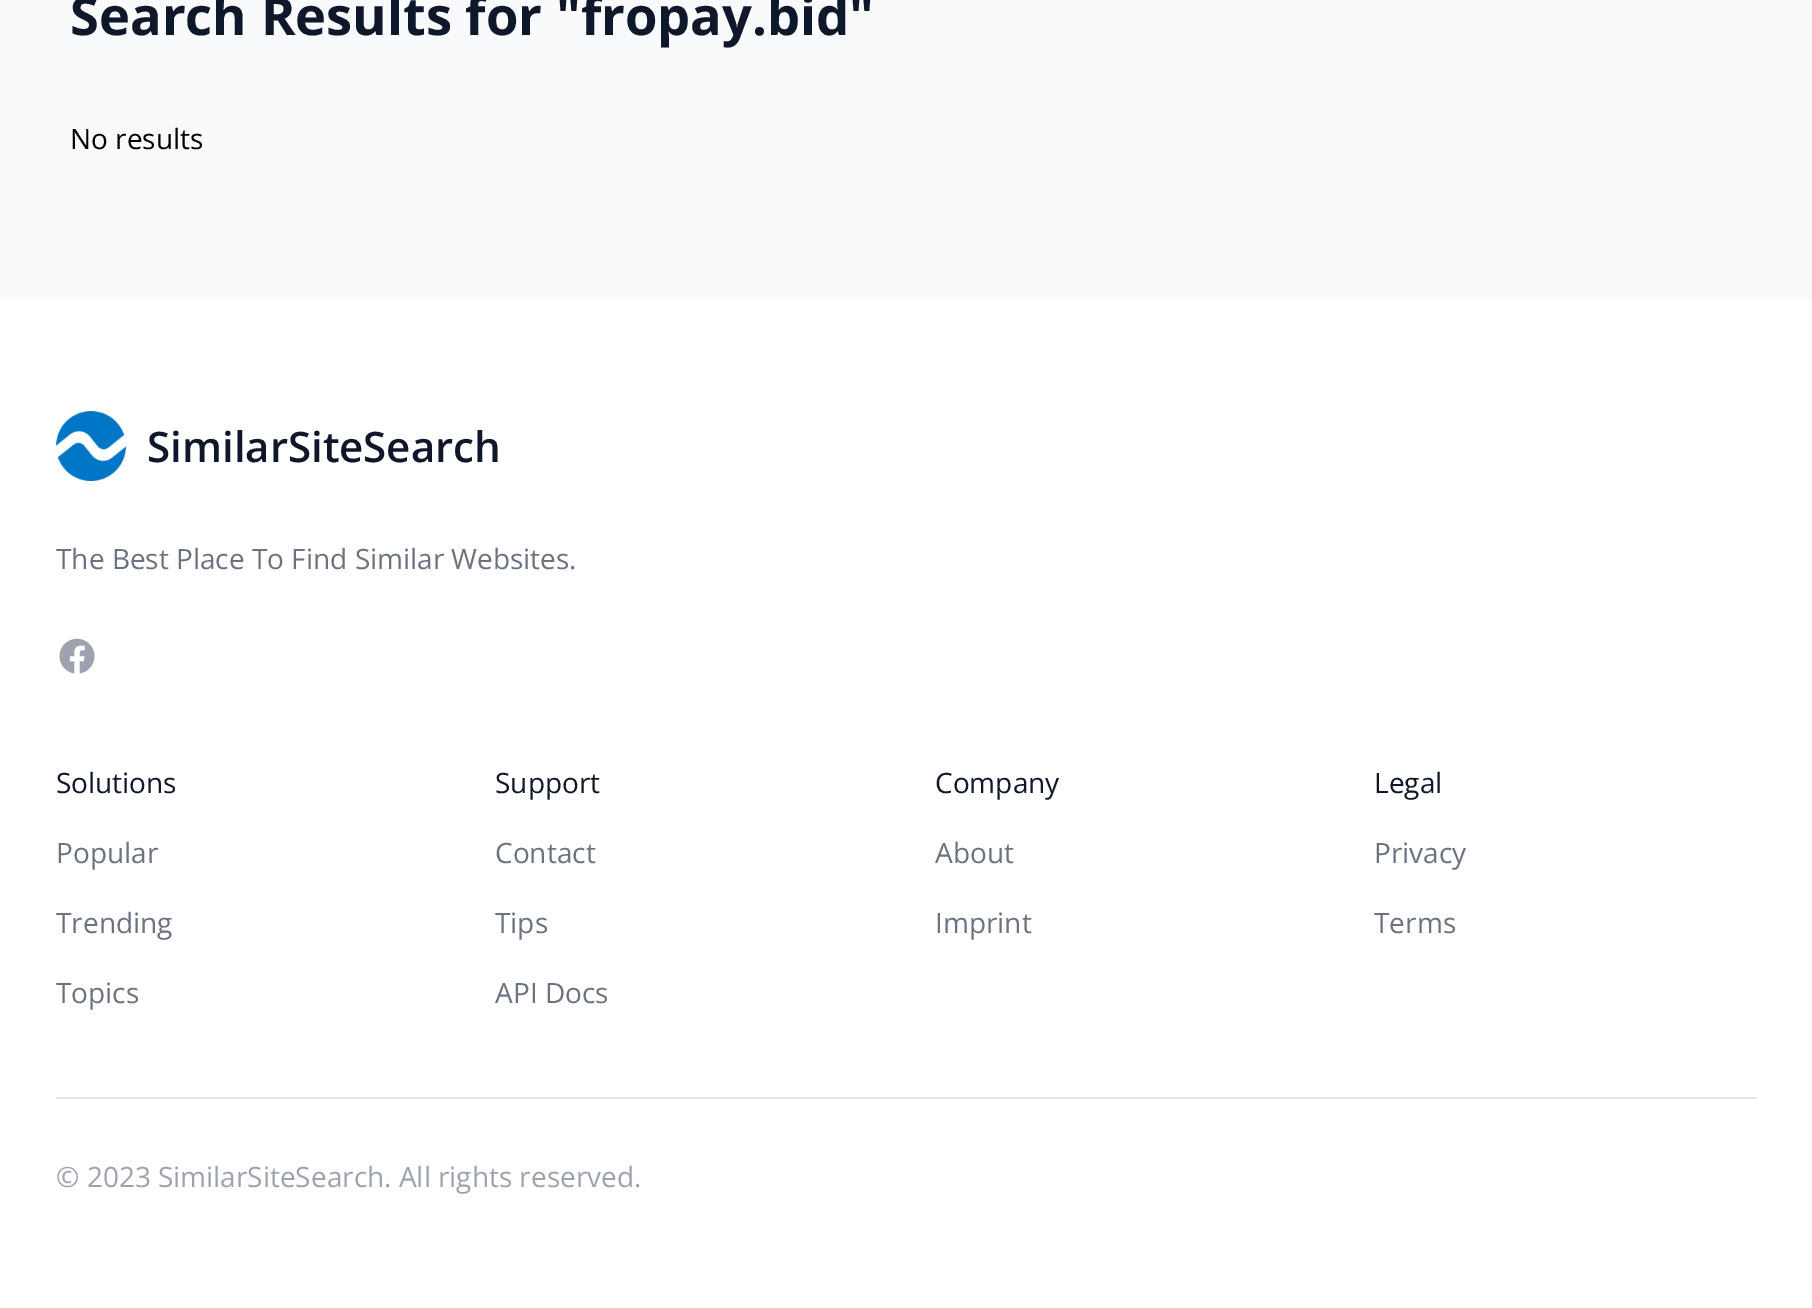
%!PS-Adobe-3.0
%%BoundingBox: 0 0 1812 1308
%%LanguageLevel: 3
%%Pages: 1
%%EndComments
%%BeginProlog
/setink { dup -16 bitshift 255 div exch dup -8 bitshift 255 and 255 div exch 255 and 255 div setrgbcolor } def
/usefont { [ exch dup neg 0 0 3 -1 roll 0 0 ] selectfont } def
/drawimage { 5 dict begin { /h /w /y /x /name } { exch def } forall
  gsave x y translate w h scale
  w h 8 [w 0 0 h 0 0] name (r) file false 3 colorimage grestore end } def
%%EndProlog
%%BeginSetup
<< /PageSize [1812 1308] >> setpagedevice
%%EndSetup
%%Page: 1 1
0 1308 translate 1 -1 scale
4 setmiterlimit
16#F8FAFC setink
0 0 1812 1308 rectfill
/OpenSans-Bold 52.5 usefont
16#0F172A setink
70 35 moveto (Search Results for "fropay.bid") show
/OpenSans-Regular 28 usefont
16#000000 setink
70 149 moveto (No results) show
16#FFFFFF setink
0 299 1812 1009 rectfill
(img1.raw) 56 411 70 70 drawimage
/OpenSans-SemiBold 42 usefont
16#0F172A setink
147 462 moveto (SimilarSiteSearch) show
/OpenSans-Regular 28 usefont
16#6B7280 setink
56 569 moveto (The Best Place To Find Similar Websites.) show
(img2.raw) 59 638 36 36 drawimage
16#0F172A setink
56 793 moveto (Solutions) show
16#6B7280 setink
[
    [(Popular) 56 863]
    [(Trending) 56 933]
    [(Topics) 56 1003]
] { aload pop moveto show } forall
16#0F172A setink
495 793 moveto (Support) show
16#6B7280 setink
[
    [(Contact) 495 863]
    [(Tips) 495 933]
    [(API Docs) 495 1003]
] { aload pop moveto show } forall
16#0F172A setink
935 793 moveto (Company) show
16#6B7280 setink
935 863 moveto (About) show
935 933 moveto (Imprint) show
16#0F172A setink
1374 793 moveto (Legal) show
16#6B7280 setink
1374 863 moveto (Privacy) show
1374 933 moveto (Terms) show
16#E5E7EB setink
56 1097 1701 2 rectfill
16#9CA3AF setink
56 1187 moveto (© 2023 SimilarSiteSearch. All rights reserved.) show
showpage
%%EOF
